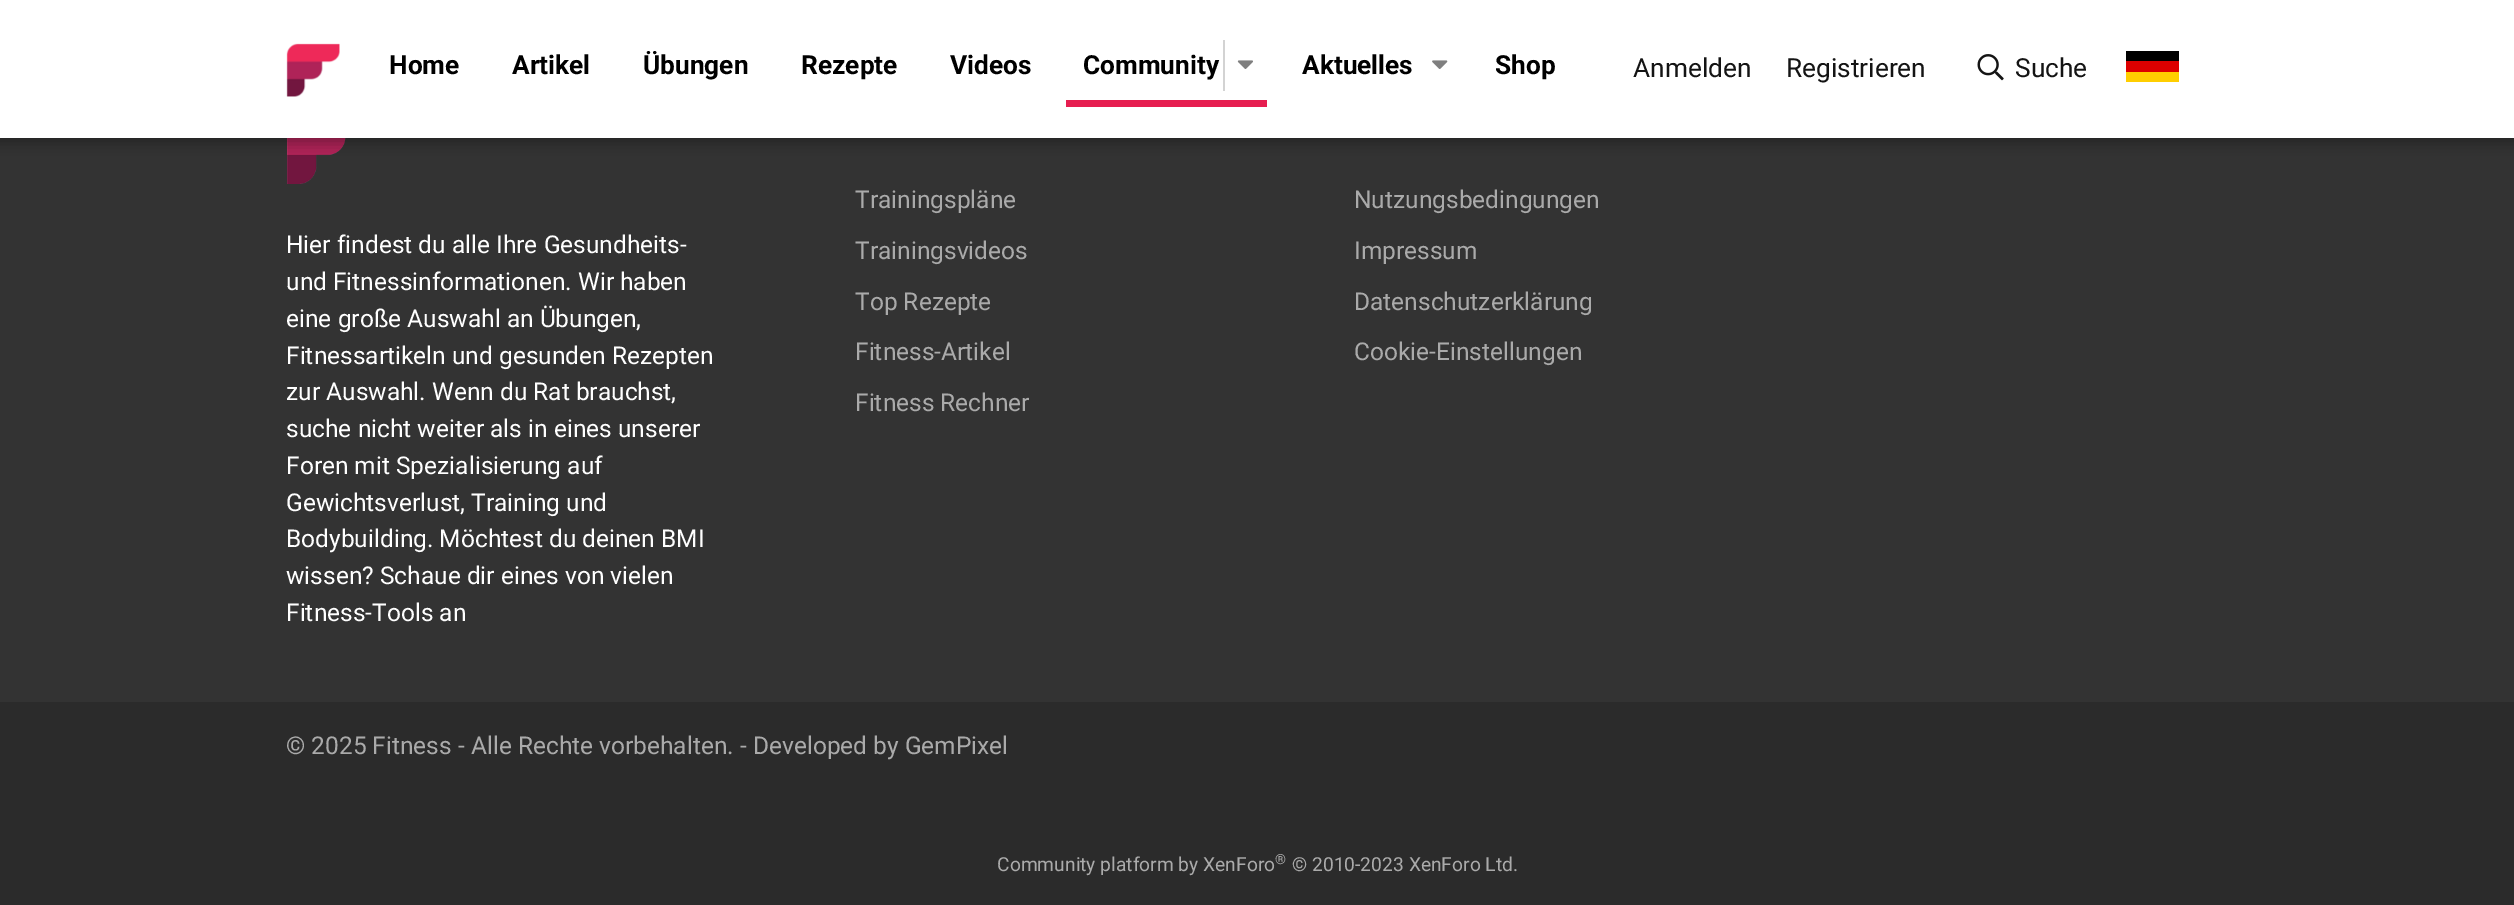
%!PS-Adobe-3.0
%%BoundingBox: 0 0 2514 905
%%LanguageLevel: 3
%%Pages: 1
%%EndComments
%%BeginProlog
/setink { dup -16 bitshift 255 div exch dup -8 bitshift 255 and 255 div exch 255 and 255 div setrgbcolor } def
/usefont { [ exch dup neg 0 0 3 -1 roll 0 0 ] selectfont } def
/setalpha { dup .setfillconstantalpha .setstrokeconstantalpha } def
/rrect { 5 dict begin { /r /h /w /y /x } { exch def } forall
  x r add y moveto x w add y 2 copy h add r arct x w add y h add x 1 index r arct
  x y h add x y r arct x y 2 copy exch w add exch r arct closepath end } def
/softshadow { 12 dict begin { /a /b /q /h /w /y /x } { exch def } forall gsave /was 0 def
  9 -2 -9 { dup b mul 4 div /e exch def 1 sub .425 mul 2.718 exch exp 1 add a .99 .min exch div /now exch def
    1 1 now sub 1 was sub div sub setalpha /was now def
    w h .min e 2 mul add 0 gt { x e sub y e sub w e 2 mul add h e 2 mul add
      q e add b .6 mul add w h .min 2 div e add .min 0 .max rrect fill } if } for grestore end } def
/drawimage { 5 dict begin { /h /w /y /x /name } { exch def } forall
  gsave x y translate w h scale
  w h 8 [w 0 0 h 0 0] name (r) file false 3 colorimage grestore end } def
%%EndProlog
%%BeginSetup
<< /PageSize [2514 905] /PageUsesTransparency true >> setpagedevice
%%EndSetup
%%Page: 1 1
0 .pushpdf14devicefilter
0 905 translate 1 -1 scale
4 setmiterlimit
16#333333 setink
0 0 2514 905 rectfill
(img5.raw) 287 138 59 46 drawimage
16#000000 setink
-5 -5 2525 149 0 7 0.3 softshadow
16#FFFFFF setink
0 0 2514 138 rectfill
(img1.raw) 286 43 54 54 drawimage
/Roboto-Bold 26.25 usefont
16#000000 setink
[
    [(Home) 389 74]
    [(Artikel) 512 74]
    [(Übungen) 643 74]
    [(Rezepte) 801 74]
    [(Videos) 950 74]
] { aload pop moveto show } forall
16#E61E50 setink
1066 100 201 7 rectfill
16#000000 setink
1083 74 moveto (Community) show
16#D3D3D3 setink
1223 40 2 51 rectfill
(img2.raw) 1237 60 16 9 drawimage
16#000000 setink
1302 74 moveto (Aktuelles) show
(img3.raw) 1432 60 16 9 drawimage
1495 74 moveto (Shop) show
/Roboto-Regular 26.25 usefont
16#141414 setink
1633 77 moveto (Anmelden) show
1786 77 moveto (Registrieren) show
(img4.raw) 1977 54 27 27 drawimage
2015 77 moveto (Suche) show
[
    [2126 51 53 10 16#000000]
    [2126 61 53 11 16#DD0000]
    [2126 72 53 10 16#FFCE00]
] { aload pop setink rectfill } forall
/Roboto-Regular 24.5 usefont
16#FFFFFF setink
[
    [(Hier findest du alle Ihre Gesundheits-) 286 253]
    [(und Fitnessinformationen. Wir haben) 286 290]
    [(eine große Auswahl an Übungen,) 286 327]
    [(Fitnessartikeln und gesunden Rezepten) 286 364]
    [(zur Auswahl. Wenn du Rat brauchst,) 286 400]
    [(suche nicht weiter als in eines unserer) 286 437]
    [(Foren mit Spezialisierung auf) 286 474]
    [(Gewichtsverlust, Training und) 286 511]
    [(Bodybuilding. Möchtest du deinen BMI) 286 547]
    [(wissen? Schaue dir eines von vielen) 286 584]
    [(Fitness-Tools an) 286 621]
] { aload pop moveto show } forall
16#AAAAAA setink
[
    [(Trainingspläne) 855 208]
    [(Trainingsvideos) 855 259]
    [(Top Rezepte) 855 310]
    [(Fitness-Artikel) 855 360]
    [(Fitness Rechner) 855 411]
    [(Nutzungsbedingungen) 1354 208]
    [(Impressum) 1354 259]
    [(Datenschutzerklärung) 1354 310]
    [(Cookie-Einstellungen) 1354 360]
] { aload pop moveto show } forall
16#2B2B2B setink
0 702 2514 203 rectfill
16#AAAAAA setink
286 754 moveto (© 2025 Fitness - Alle Rechte vorbehalten. - Developed by GemPixel) show
/Roboto-Regular 19.25 usefont
997 871 moveto (Community platform by XenForo) show
/Roboto-Regular 14 usefont
1275 864 moveto (®) show
/Roboto-Regular 19.25 usefont
1292 871 moveto (© 2010-2023 XenForo Ltd.) show
.poppdf14devicefilter showpage
%%EOF
